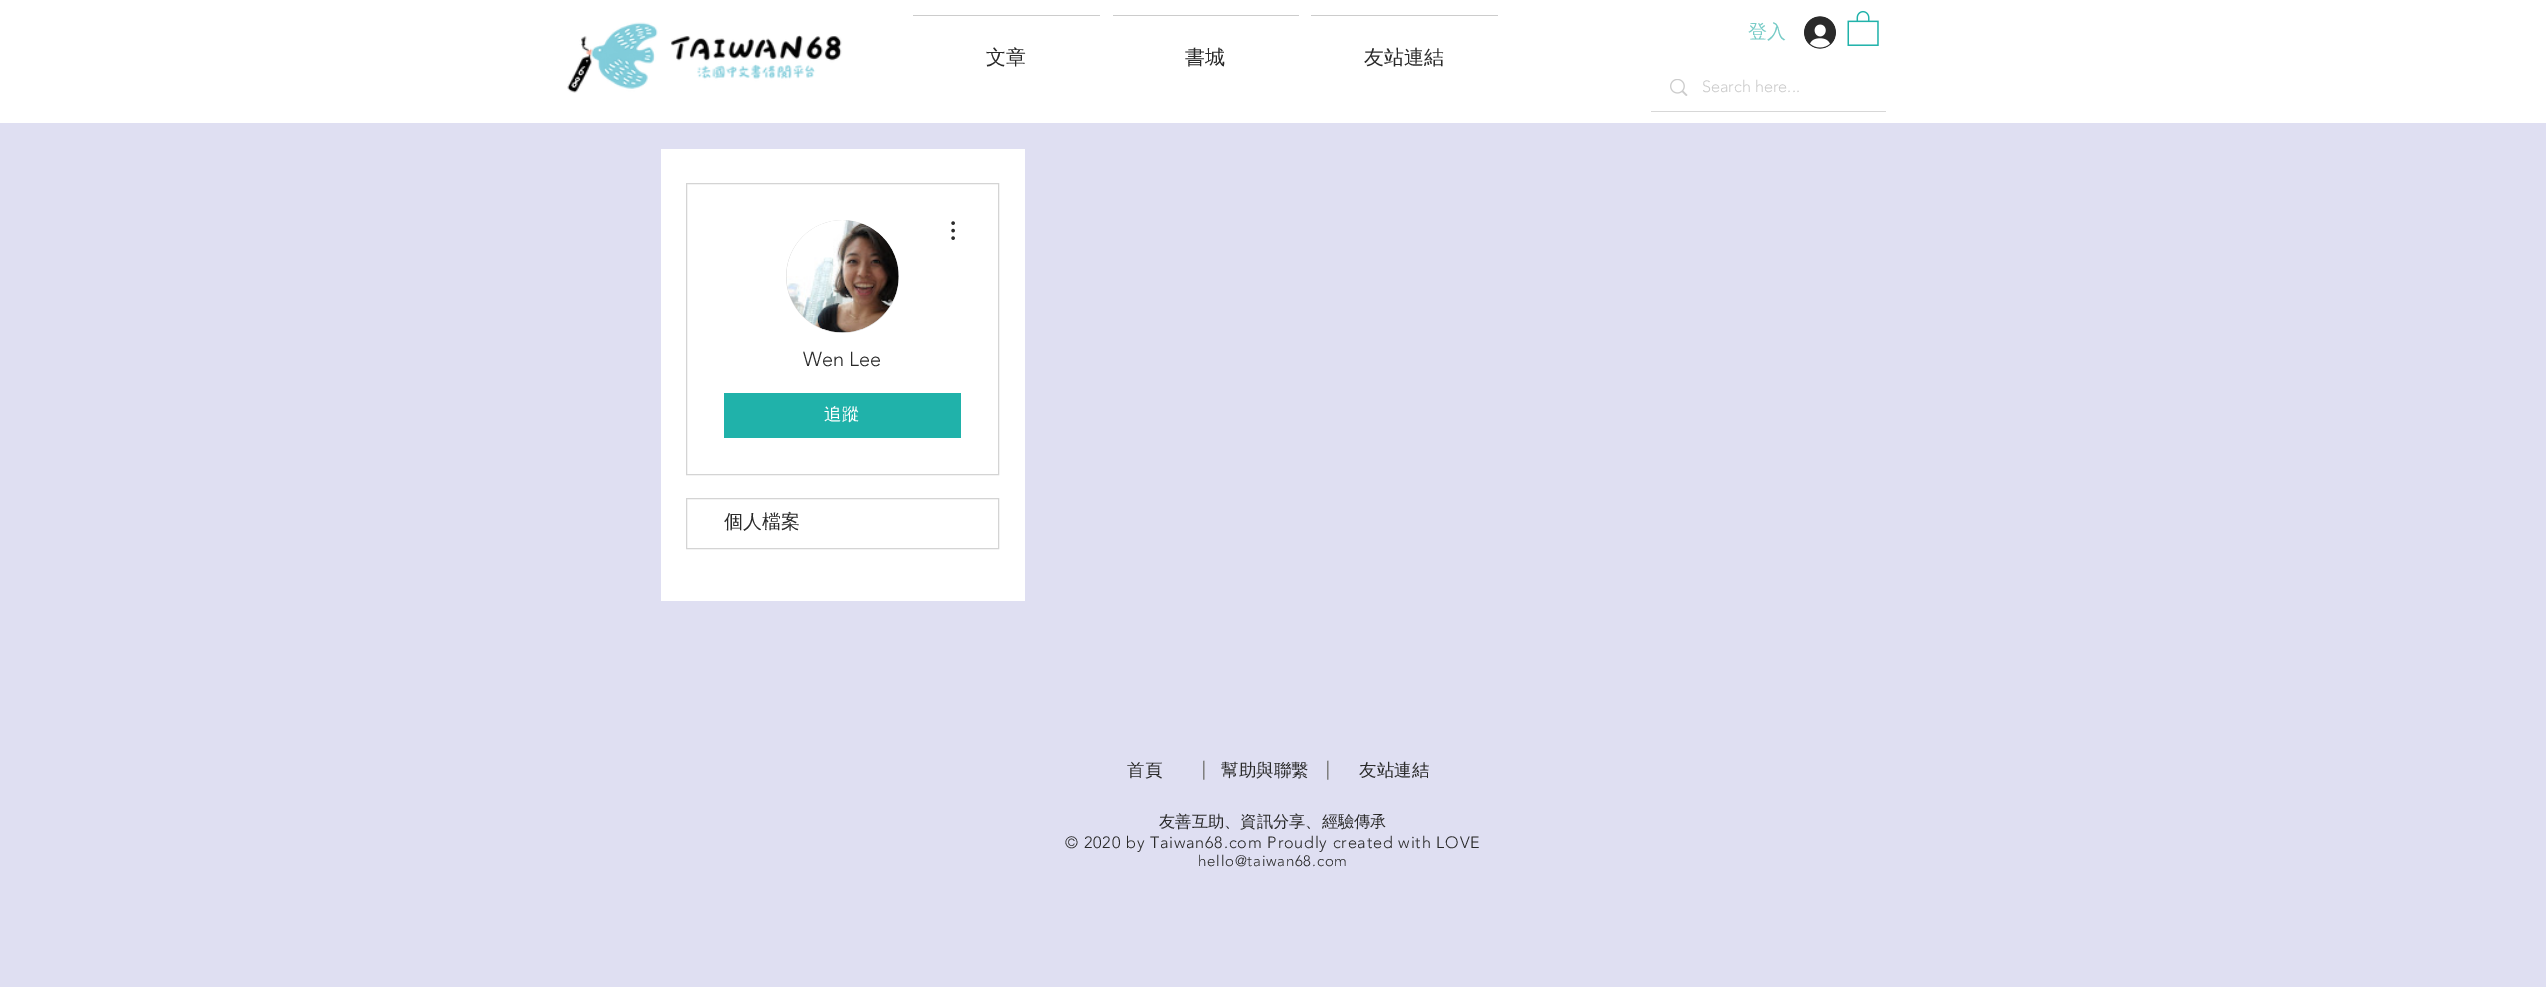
%!PS-Adobe-3.0
%%BoundingBox: 0 0 2546 987
%%LanguageLevel: 3
%%Pages: 1
%%EndComments
%%BeginProlog
/setink { dup -16 bitshift 255 div exch dup -8 bitshift 255 and 255 div exch 255 and 255 div setrgbcolor } def
/usefont { [ exch dup neg 0 0 3 -1 roll 0 0 ] selectfont } def
/disc { newpath 0 360 arc closepath } def
/drawimage { 5 dict begin { /h /w /y /x /name } { exch def } forall
  gsave x y translate w h scale
  w h 8 [w 0 0 h 0 0] name (r) file false 3 colorimage grestore end } def
%%EndProlog
%%BeginSetup
<< /PageSize [2546 987] >> setpagedevice
%%EndSetup
%%Page: 1 1
0 987 translate 1 -1 scale
4 setmiterlimit
16#DFDFF2 setink
0 0 2546 987 rectfill
16#FFFFFF setink
0 0 2546 123 rectfill
(img1.raw) 567 22 275 71 drawimage
/WenQuanYiZenHei-Medium 19 usefont
16#78CCC7 setink
1748 38 moveto (登入) show
(img2.raw) 1804 16 32 33 drawimage
(img3.raw) 1847 10 32 36 drawimage
16#CCCCCC setink
913 15 187 1 rectfill
/WenQuanYiZenHei-Medium 20 usefont
16#2A2A2A setink
986 64 moveto (文章) show
16#CCCCCC setink
1113 15 186 1 rectfill
16#2A2A2A setink
1185 64 moveto (書城) show
16#CCCCCC setink
1311 15 187 1 rectfill
16#2A2A2A setink
1364 64 moveto (友站連結) show
16#D7D7D7 setink
1651 111 235 1 rectfill
(img4.raw) 1670 79 18 17 drawimage
/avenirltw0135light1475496-Light 16.25 usefont
16#CCCCCC setink
1702 92 moveto (Search here...) show
16#FFFFFF setink
661 149 364 452 rectfill
16#D4D4D4 setink
686.5 183.5 312 291 rectstroke
16#D8D8D8 setink
842.5 276.5 56.5 disc fill
(img5.raw) 786 220 113 113 drawimage
(img6.raw) 951 221 4 19 drawimage
/avenirltw0135light1475496-Light 20 usefont
16#2A2A2A setink
803 366 moveto (Wen Lee) show
16#20B2AA setink
724 393 237 45 rectfill
/WenQuanYiZenHei-Medium 17.5 usefont
16#FFFFFF setink
824 420 moveto (追蹤) show
16#D4D4D4 setink
686.5 498.5 312 50 rectstroke
/WenQuanYiZenHei-Medium 19 usefont
16#2A2A2A setink
724 528 moveto (個人檔案) show
/WenQuanYiZenHei-Medium 17.5 usefont
1127 776 moveto (首頁) show
/WenQuanYiZenHei-Medium 19 usefont
16#808080 setink
1194 777 moveto (┃) show
/WenQuanYiZenHei-Medium 17.5 usefont
16#2A2A2A setink
1221 776 moveto (幫助與聯繫) show
/WenQuanYiZenHei-Medium 19 usefont
16#808080 setink
1318 777 moveto (┃) show
/WenQuanYiZenHei-Medium 17.5 usefont
16#2A2A2A setink
1359 776 moveto (友站連結) show
/WenQuanYiZenHei-Medium 16.25 usefont
1159 827 moveto (友善互助、資訊分享、經驗傳承) show
/avenirltw0135light1475496-Light 16.25 usefont
1065 848 moveto 0.8 0 (© 2020 by Taiwan68.com Proudly created with LOVE) ashow
/avenirltw0135light1475496-Light 15 usefont
1198 866 moveto 0.75 0 (hello@taiwan68.com) ashow
showpage
%%EOF
